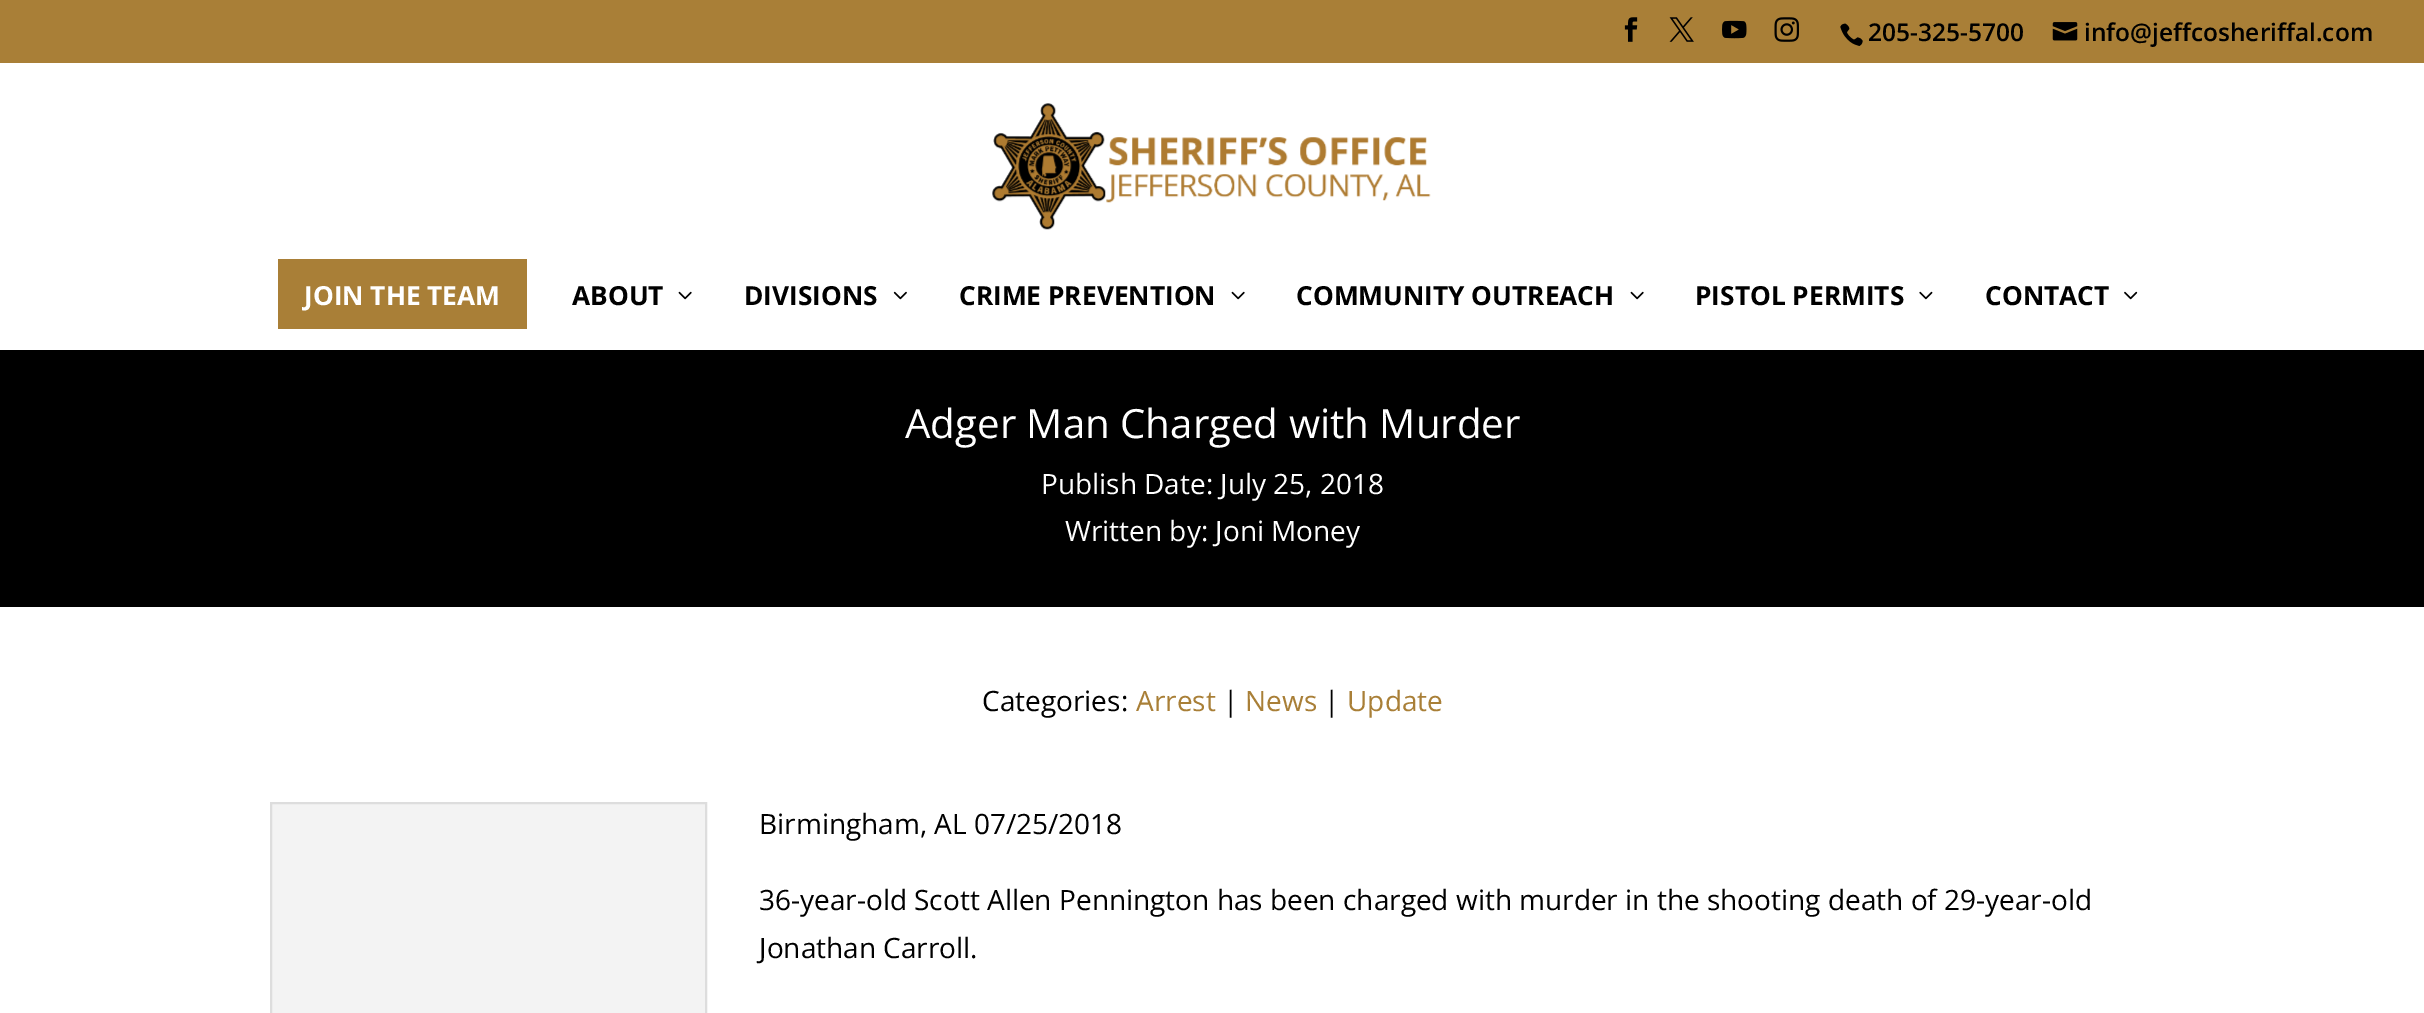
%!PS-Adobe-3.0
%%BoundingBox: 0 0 2424 1013
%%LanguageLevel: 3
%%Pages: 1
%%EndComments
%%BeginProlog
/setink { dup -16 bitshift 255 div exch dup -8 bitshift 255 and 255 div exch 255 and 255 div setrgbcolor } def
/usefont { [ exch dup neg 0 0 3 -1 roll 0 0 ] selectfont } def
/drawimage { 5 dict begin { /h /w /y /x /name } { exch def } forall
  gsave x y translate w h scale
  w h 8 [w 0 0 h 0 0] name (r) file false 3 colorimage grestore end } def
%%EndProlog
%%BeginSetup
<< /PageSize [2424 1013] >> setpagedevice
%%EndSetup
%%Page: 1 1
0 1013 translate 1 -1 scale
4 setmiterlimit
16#FFFFFF setink
0 0 2424 1013 rectfill
16#A97F37 setink
0 0 2424 63 rectfill
(img1.raw) 1624 17 14 25 drawimage
(img2.raw) 1669 17 25 25 drawimage
(img3.raw) 1722 20 25 19 drawimage
(img4.raw) 1774 17 25 25 drawimage
(img5.raw) 1840 23 23 23 drawimage
/OpenSans-SemiBold 24.5 usefont
16#000000 setink
1868 41 moveto (205-325-5700) show
(img6.raw) 2052 22 26 19 drawimage
2084 41 moveto (info@jeffcosheriffal.com) show
(img7.raw) 992 103 439 127 drawimage
16#A97F37 setink
278 259 249 70 rectfill
/OpenSans-Bold 26.25 usefont
16#FFFFFF setink
304 305 moveto (JOIN THE TEAM) show
16#000000 setink
572 305 moveto (ABOUT) show
(img8.raw) 678 291 14 9 drawimage
744 305 moveto (DIVISIONS) show
(img9.raw) 893 291 14 9 drawimage
959 305 moveto (CRIME PREVENTION) show
(img8.raw) 1231 291 14 9 drawimage
1296 305 moveto (COMMUNITY OUTREACH) show
(img8.raw) 1630 291 14 9 drawimage
1695 305 moveto (PISTOL PERMITS) show
(img10.raw) 1919 291 14 9 drawimage
1985 305 moveto (CONTACT) show
(img11.raw) 2124 291 14 9 drawimage
0 350 2424 257 rectfill
/OpenSans-Regular 40.25 usefont
16#FFFFFF setink
905 438 moveto (Adger Man Charged with Murder) show
/OpenSans-Regular 28 usefont
1041 494 moveto (Publish Date: July 25, 2018) show
1065 541 moveto (Written by: Joni Money) show
16#000000 setink
982 711 moveto (Categories:) show
16#A97F37 setink
1136 711 moveto (Arrest) show
16#000000 setink
1223 711 moveto (|) show
16#A97F37 setink
1245 711 moveto (News) show
16#000000 setink
1324 711 moveto (|) show
16#A97F37 setink
1347 711 moveto (Update) show
16#F3F3F3 setink
271 803 moveto 706 803 lineto 706 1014 lineto 271 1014 lineto closepath gsave fill grestore
16#DDDDDD setink
2 setlinewidth
stroke
16#000000 setink
[
    [(Birmingham, AL 07/25/2018) 759 834]
    [(36-year-old Scott Allen Pennington has been charged with murder in the shooting death of 29-year-old) 759 910]
    [(Jonathan Carroll.) 759 958]
] { aload pop moveto show } forall
showpage
%%EOF
